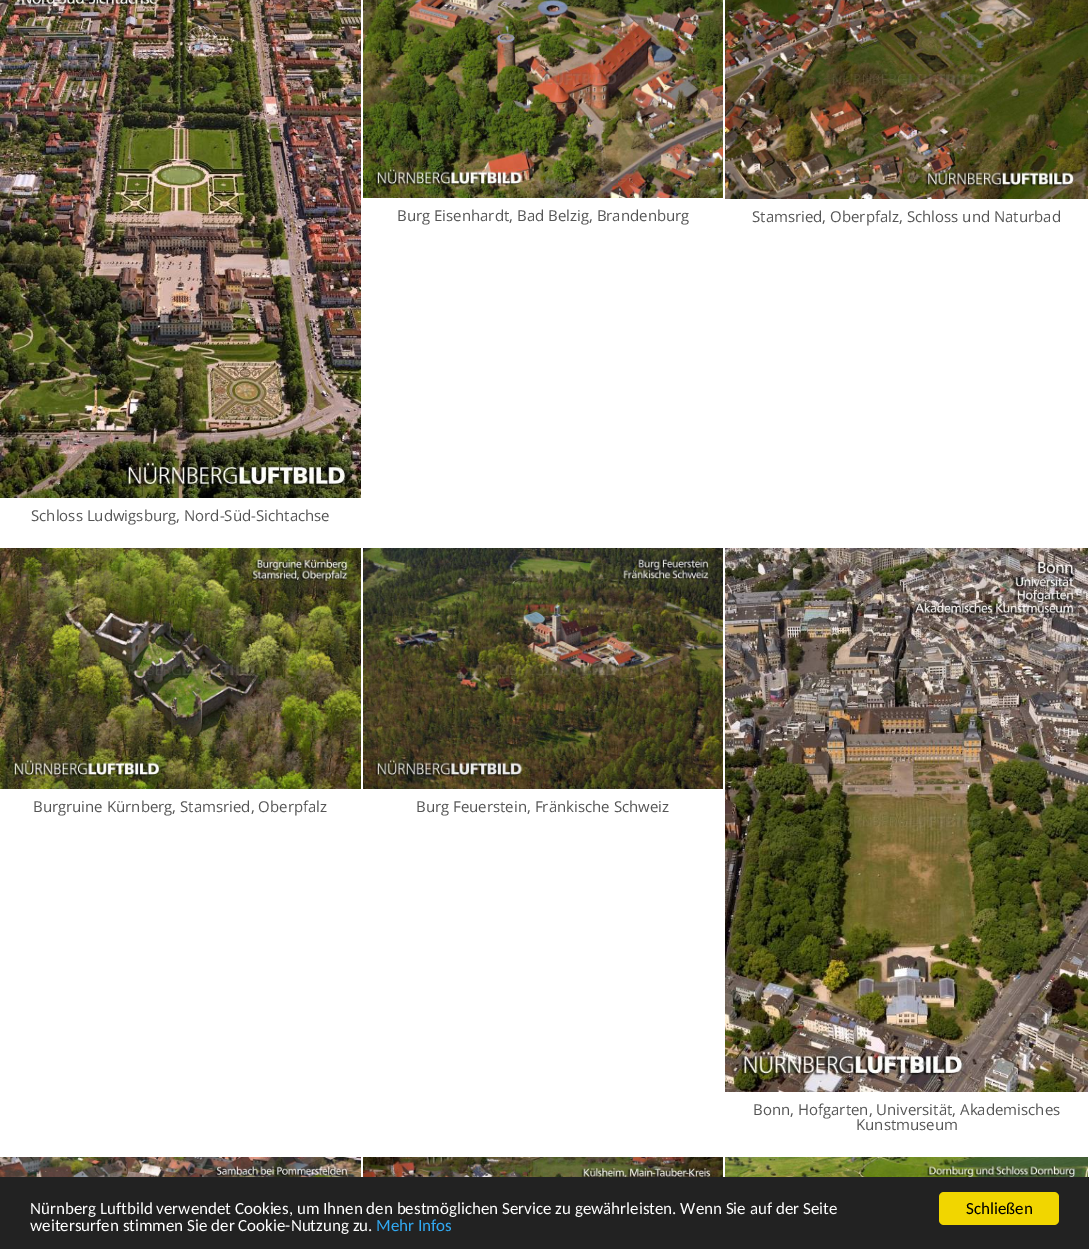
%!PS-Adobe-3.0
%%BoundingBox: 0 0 1089 1249
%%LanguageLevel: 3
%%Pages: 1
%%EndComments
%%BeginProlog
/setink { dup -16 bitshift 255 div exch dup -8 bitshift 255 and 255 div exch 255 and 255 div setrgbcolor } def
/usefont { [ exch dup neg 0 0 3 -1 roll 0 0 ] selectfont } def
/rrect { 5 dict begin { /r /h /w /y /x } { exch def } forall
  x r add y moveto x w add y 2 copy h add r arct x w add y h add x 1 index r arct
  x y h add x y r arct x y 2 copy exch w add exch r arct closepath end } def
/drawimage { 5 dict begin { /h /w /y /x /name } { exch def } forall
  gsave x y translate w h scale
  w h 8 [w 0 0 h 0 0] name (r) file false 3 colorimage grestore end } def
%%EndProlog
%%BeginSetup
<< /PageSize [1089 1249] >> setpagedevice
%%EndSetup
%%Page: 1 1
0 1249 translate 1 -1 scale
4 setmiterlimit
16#FFFFFF setink
0 0 1089 1249 rectfill
(img1.raw) 363 0 360 198 drawimage
/OpenSans-Regular 15 usefont
16#555555 setink
397 221 moveto (Burg Eisenhardt, Bad Belzig, Brandenburg) show
(img2.raw) 725 0 363 199 drawimage
752 222 moveto (Stamsried, Oberpfalz, Schloss und Naturbad) show
(img3.raw) 0 0 361 498 drawimage
31 521 moveto (Schloss Ludwigsburg, Nord-Süd-Sichtachse) show
(img4.raw) 0 548 361 241 drawimage
33 812 moveto (Burgruine Kürnberg, Stamsried, Oberpfalz) show
(img5.raw) 363 548 360 241 drawimage
416 812 moveto (Burg Feuerstein, Fränkische Schweiz) show
(img6.raw) 725 548 363 544 drawimage
753 1115 moveto (Bonn, Hofgarten, Universität, Akademisches) show
856 1130 moveto (Kunstmuseum) show
(img7.raw) 0 1157 361 20 drawimage
(img8.raw) 363 1157 360 20 drawimage
(img9.raw) 725 1157 363 20 drawimage
16#222222 setink
0 1177 1089 72 rectfill
/Carlito-Regular 17 usefont
16#FFFFFF setink
30 1214 moveto (Nürnberg Luftbild verwendet Cookies, um Ihnen den bestmöglichen Service zu gewährleisten. Wenn Sie auf der Seite) show
30 1231 moveto (weitersurfen stimmen Sie der Cookie-Nutzung zu.) show
16#31A8F0 setink
376 1231 moveto (Mehr Infos) show
16#F1D600 setink
939 1192 120 33 5 rrect fill
16#000000 setink
966 1214 moveto (Schließen) show
showpage
%%EOF
